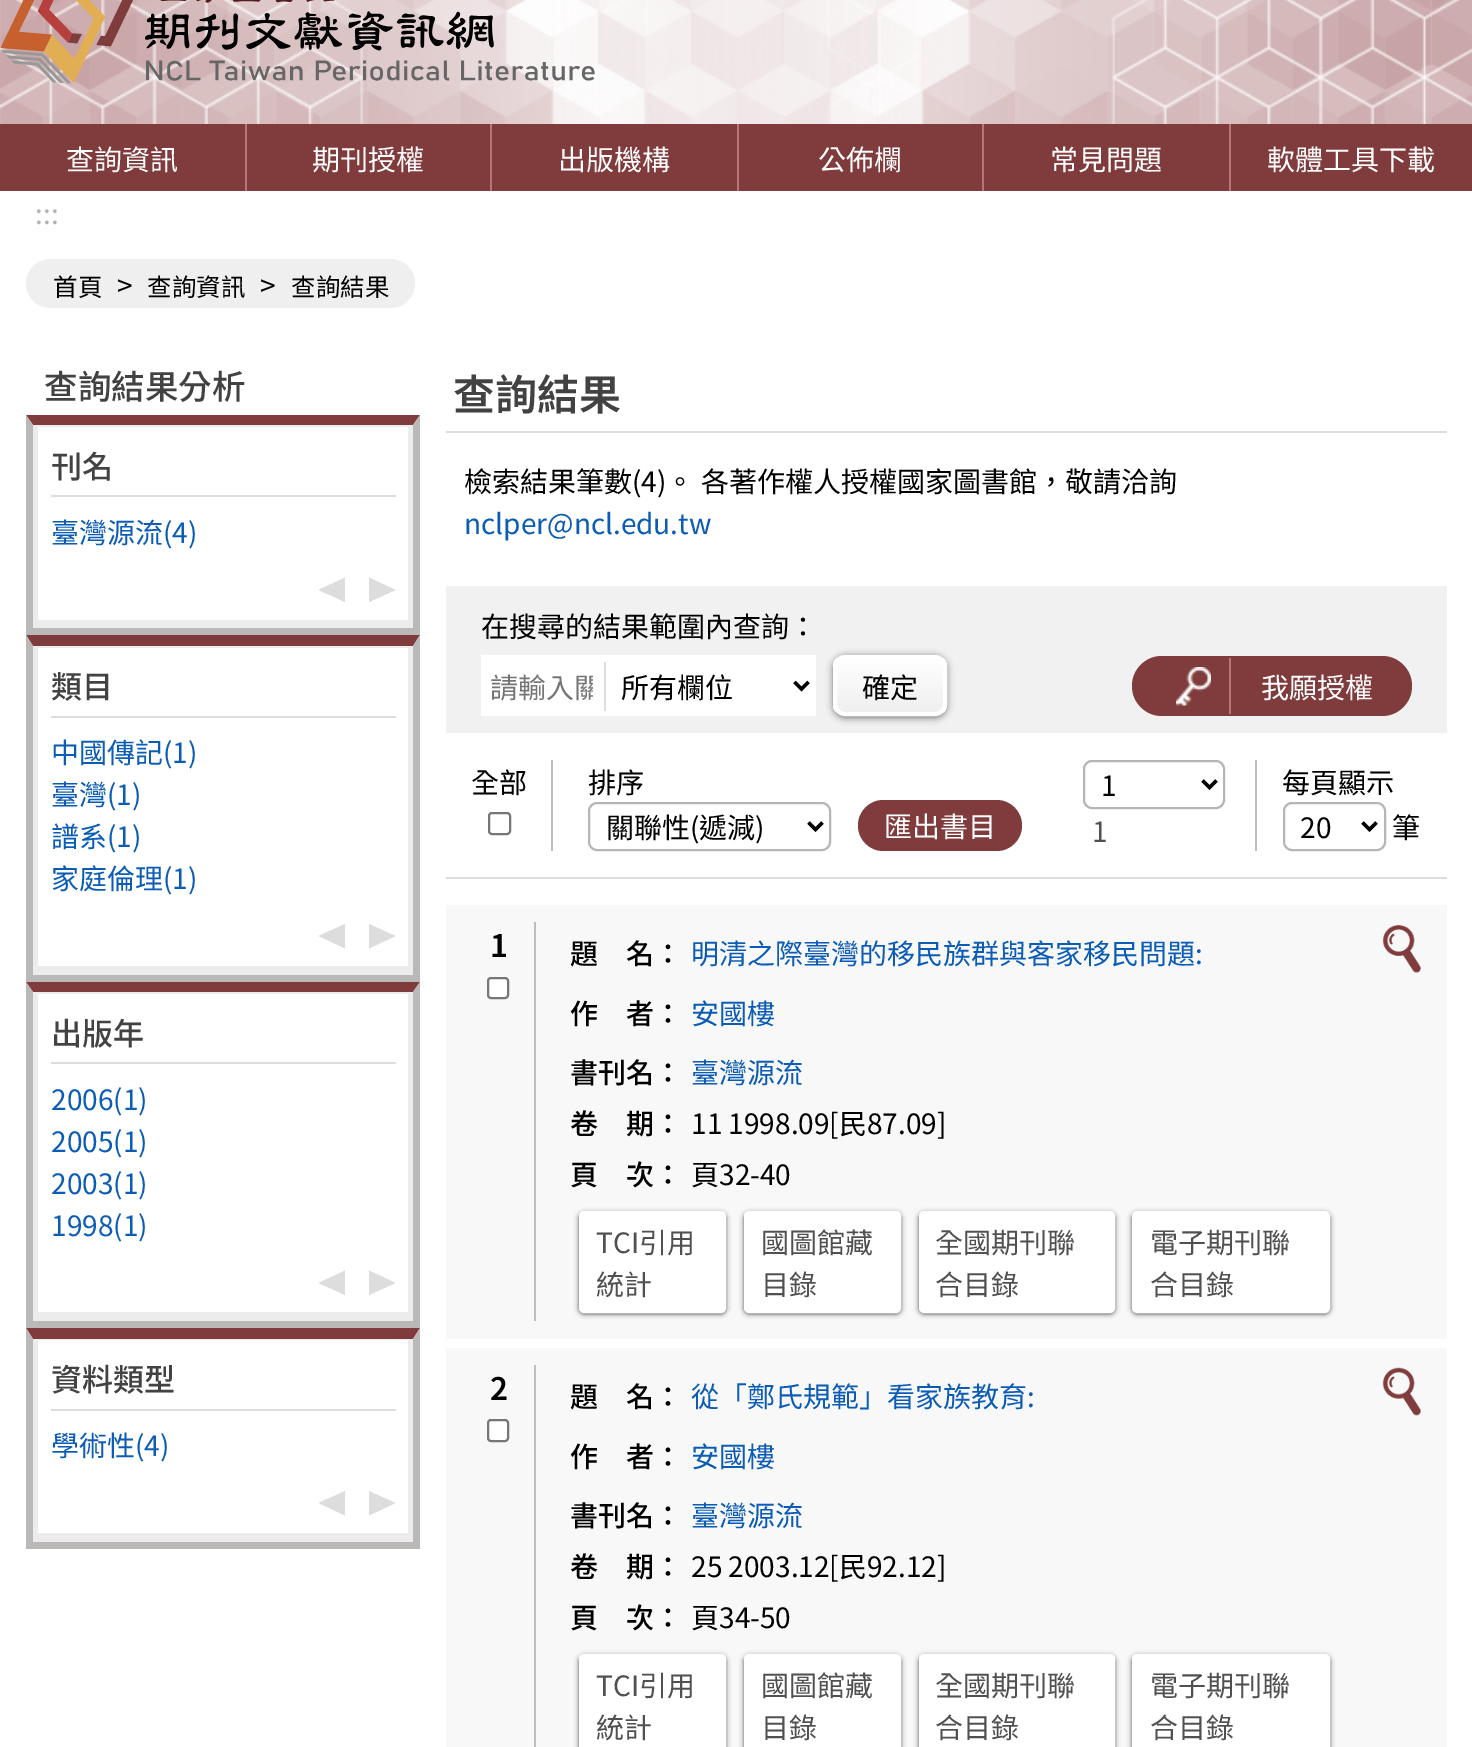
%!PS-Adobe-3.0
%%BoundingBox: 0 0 1472 1747
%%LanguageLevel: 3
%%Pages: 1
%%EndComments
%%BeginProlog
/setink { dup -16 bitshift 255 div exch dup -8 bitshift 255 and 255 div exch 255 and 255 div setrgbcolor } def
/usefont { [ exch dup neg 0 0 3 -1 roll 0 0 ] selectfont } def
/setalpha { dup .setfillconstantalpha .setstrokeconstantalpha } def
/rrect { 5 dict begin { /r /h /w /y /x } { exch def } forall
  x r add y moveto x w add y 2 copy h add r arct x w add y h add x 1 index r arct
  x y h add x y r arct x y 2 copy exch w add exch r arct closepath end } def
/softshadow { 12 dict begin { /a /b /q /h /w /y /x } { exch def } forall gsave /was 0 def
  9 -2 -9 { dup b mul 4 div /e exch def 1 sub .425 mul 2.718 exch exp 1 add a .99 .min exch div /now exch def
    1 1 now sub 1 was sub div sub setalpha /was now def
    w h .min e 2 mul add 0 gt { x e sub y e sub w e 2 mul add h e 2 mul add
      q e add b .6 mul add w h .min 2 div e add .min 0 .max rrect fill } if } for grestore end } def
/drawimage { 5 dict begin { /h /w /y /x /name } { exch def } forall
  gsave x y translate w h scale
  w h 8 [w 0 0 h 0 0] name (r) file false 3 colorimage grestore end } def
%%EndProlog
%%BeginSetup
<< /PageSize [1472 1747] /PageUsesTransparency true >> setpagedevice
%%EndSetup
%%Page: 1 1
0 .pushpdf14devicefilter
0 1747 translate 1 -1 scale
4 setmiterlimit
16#FFFFFF setink
0 0 1472 1747 rectfill
(img1.raw) 0 0 1472 124 drawimage
(img2.raw) 0 0 595 84 drawimage
16#803C3D setink
0 124 1472 67 rectfill
/NotoSansTC-Regular 28 usefont
16#FFFFFF setink
66 170 moveto (查詢資訊) show
16#B57677 setink
245 124 2 67 rectfill
16#FFFFFF setink
312 170 moveto (期刊授權) show
16#B57677 setink
490 124 2 67 rectfill
16#FFFFFF setink
558 170 moveto (出版機構) show
16#B57677 setink
737 124 2 67 rectfill
16#FFFFFF setink
818 170 moveto (公佈欄) show
16#B57677 setink
982 124 2 67 rectfill
16#FFFFFF setink
1050 170 moveto (常見問題) show
16#B57677 setink
1229 124 2 67 rectfill
16#FFFFFF setink
1267 170 moveto (軟體工具下載) show
16#B1B4B6 setink
35 224 moveto (:::) show
16#EFEFEF setink
26 259 389 49 24.5 rrect fill
/NotoSansTC-Regular 24.5 usefont
16#000000 setink
53 296 moveto (首頁) show
/NotoSansTC-Regular 28 usefont
117 296 moveto (>) show
/NotoSansTC-Regular 24.5 usefont
147 296 moveto (查詢資訊) show
/NotoSansTC-Regular 28 usefont
260 296 moveto (>) show
/NotoSansTC-Regular 24.5 usefont
291 296 moveto (查詢結果) show
/NotoSansTC-Medium 33.5 usefont
16#424242 setink
44 399 moveto (查詢結果分析) show
gsave
33 425 380 203 rectclip
16#ECECEC setink
-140 252 moveto 586 252 lineto 586 802 lineto -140 802 lineto closepath 38 427 moveto 408 427 lineto 408 620 lineto 38 620 lineto closepath eofill
grestore
16#803C3D setink
26 415 moveto 420 415 lineto 413 425 lineto 33 425 lineto closepath fill
16#BBB8B8 setink
420 415 moveto 420 635 lineto 413 628 lineto 413 425 lineto closepath fill
26 628 394 7 rectfill
26 635 moveto 26 415 lineto 33 425 lineto 33 628 lineto closepath fill
16#DDDDDD setink
51 495 345 2 rectfill
/NotoSansTC-Medium 31 usefont
16#424242 setink
51 478 moveto (刊名) show
/NotoSansTC-Regular 28 usefont
16#0B5CB4 setink
51 543 moveto (臺灣源流\(4\)) show
16#DDDDDD setink
345 577.5 moveto 345 602 lineto 318.5 590 lineto closepath fill
369 602 moveto 369 577.5 lineto 395.5 590 lineto closepath fill
gsave
33 646 380 329 rectclip
16#ECECEC setink
-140 472 moveto 586 472 lineto 586 1148 lineto -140 1148 lineto closepath 38 648 moveto 408 648 lineto 408 966 lineto 38 966 lineto closepath eofill
grestore
16#803C3D setink
26 635 moveto 420 635 lineto 413 646 lineto 33 646 lineto closepath fill
16#BBB8B8 setink
420 635 moveto 420 982 lineto 413 975 lineto 413 646 lineto closepath fill
26 975 394 7 rectfill
26 982 moveto 26 635 lineto 33 646 lineto 33 975 lineto closepath fill
16#DDDDDD setink
51 716 345 2 rectfill
/NotoSansTC-Medium 31 usefont
16#424242 setink
51 698 moveto (類目) show
/NotoSansTC-Regular 28 usefont
16#0B5CB4 setink
[
    [(中國傳記\(1\)) 51 763]
    [(臺灣\(1\)) 51 805]
    [(譜系\(1\)) 51 847]
    [(家庭倫理\(1\)) 51 889]
] { aload pop moveto show } forall
16#DDDDDD setink
345 924 moveto 345 948.5 lineto 318.5 936 lineto closepath fill
369 948.5 moveto 369 924 lineto 395.5 936 lineto closepath fill
gsave
33 992 380 329 rectclip
16#ECECEC setink
-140 819 moveto 586 819 lineto 586 1494 lineto -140 1494 lineto closepath 38 994 moveto 408 994 lineto 408 1312 lineto 38 1312 lineto closepath eofill
grestore
16#803C3D setink
26 982 moveto 420 982 lineto 413 992 lineto 33 992 lineto closepath fill
16#BBB8B8 setink
420 982 moveto 420 1328 lineto 413 1321 lineto 413 992 lineto closepath fill
26 1321 394 7 rectfill
26 1328 moveto 26 982 lineto 33 992 lineto 33 1321 lineto closepath fill
16#DDDDDD setink
51 1062 345 2 rectfill
/NotoSansTC-Medium 31 usefont
16#424242 setink
51 1045 moveto (出版年) show
/NotoSansTC-Regular 28 usefont
16#0B5CB4 setink
[
    [(2006\(1\)) 51 1110]
    [(2005\(1\)) 51 1152]
    [(2003\(1\)) 51 1194]
    [(1998\(1\)) 51 1236]
] { aload pop moveto show } forall
16#DDDDDD setink
345 1270.5 moveto 345 1295 lineto 318.5 1283 lineto closepath fill
369 1295 moveto 369 1270.5 lineto 395.5 1283 lineto closepath fill
gsave
33 1339 380 203 rectclip
16#ECECEC setink
-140 1166 moveto 586 1166 lineto 586 1715 lineto -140 1715 lineto closepath 38 1340 moveto 408 1340 lineto 408 1533 lineto 38 1533 lineto closepath eofill
grestore
16#803C3D setink
26 1328 moveto 420 1328 lineto 413 1339 lineto 33 1339 lineto closepath fill
16#BBB8B8 setink
420 1328 moveto 420 1549 lineto 413 1542 lineto 413 1339 lineto closepath fill
26 1542 394 7 rectfill
26 1549 moveto 26 1328 lineto 33 1339 lineto 33 1542 lineto closepath fill
16#DDDDDD setink
51 1409 345 2 rectfill
/NotoSansTC-Medium 31 usefont
16#424242 setink
51 1391 moveto (資料類型) show
/NotoSansTC-Regular 28 usefont
16#0B5CB4 setink
51 1456 moveto (學術性\(4\)) show
16#DDDDDD setink
345 1491 moveto 345 1515.5 lineto 318.5 1503 lineto closepath fill
369 1515.5 moveto 369 1491 lineto 395.5 1503 lineto closepath fill
446 431 1001 2 rectfill
/NotoSansTC-SemiBold 42 usefont
16#424242 setink
453 410 moveto (查詢結果) show
/NotoSansTC-Regular 28 usefont
16#000000 setink
464 492 moveto (檢索結果筆數\(4\)。 各著作權人授權國家圖書館，敬請洽詢) show
16#0B5CB4 setink
464 534 moveto (nclper@ncl.edu.tw) show
16#F1F1F1 setink
446 586 1001 147 rectfill
16#000000 setink
481 637 moveto (在搜尋的結果範圍內查詢：) show
16#FFFFFF setink
481 655 335 61 rectfill
gsave
490 665 103 42 rectclip
16#757575 setink
490 698 moveto (請輸入關) show
grestore
16#DDDDDD setink
604 662 2 49 rectfill
16#000000 setink
3.5 setlinewidth
794.5 682 moveto 801.5 689 lineto 808.5 682 lineto stroke
621 698 moveto (所有欄位) show
833 656 114 62 12 3.5 0.5 softshadow
gsave
833 655 114 61 12 rrect clip newpath
gsave 833 658 moveto 947 658 lineto 947 712 lineto 833 712 lineto closepath clip newpath
<< /ShadingType 2 /ColorSpace /DeviceRGB /Coords [890 658 890 712] /Extend [true true] /Function << /FunctionType 2 /Domain [0 1] /C0 [1 1 1] /C1 [0.937 0.937 0.937] /N 1 >> >> shfill grestore
grestore
16#FFFFFF setink
4 setlinewidth
835 657 110 57 10 rrect stroke
16#000000 setink
862 698 moveto (確定) show
16#803C3D setink
1132 656 280 60 30 rrect fill
16#B57677 setink
1229 658 2 56 rectfill
(img3.raw) 1176 667 35 39 drawimage
16#FFFFFF setink
1261 698 moveto (我願授權) show
16#DDDDDD setink
446 877 1001 2 rectfill
16#BEBEBE setink
551 760 2 91 rectfill
16#000000 setink
471 793 moveto (全部) show
16#767676 setink
2 setlinewidth
489 813 21 21 3 rrect stroke
16#000000 setink
588 793 moveto (排序) show
16#B6B6B6 setink
589 803 241 47 8 rrect stroke
16#000000 setink
3.5 setlinewidth
808.5 822.5 moveto 815.5 829.5 lineto 822.5 822.5 lineto stroke
606 838 moveto (關聯性\(遞減\)) show
16#803C3D setink
858 800 164 51 25.5 rrect fill
16#FFFFFF setink
884 837 moveto (匯出書目) show
16#B6B6B6 setink
2 setlinewidth
1084 761 140 47 8 rrect stroke
16#000000 setink
3.5 setlinewidth
1202.5 780.5 moveto 1209.5 787.5 lineto 1216.5 780.5 lineto stroke
1101 796 moveto (1) show
16#505050 setink
1092 842 moveto (1) show
16#BEBEBE setink
1255 760 2 91 rectfill
16#000000 setink
1282 793 moveto (每頁顯示) show
16#B6B6B6 setink
2 setlinewidth
1284 803 101 47 8 rrect stroke
16#000000 setink
3.5 setlinewidth
1362.5 822.5 moveto 1369.5 829.5 lineto 1376.5 822.5 lineto stroke
1300 838 moveto (20) show
1392 838 moveto (筆) show
16#F8F8F8 setink
446 905 1001 434 rectfill
16#BEBEBE setink
534 922 2 399 rectfill
/NotoSansTC-SemiBold 31 usefont
16#000000 setink
490 957 moveto (1) show
16#FFFFFF setink
488 978 20 20 3 rrect gsave fill grestore
16#767676 setink
2 setlinewidth
stroke
/NotoSansTC-Medium 28 usefont
16#000000 setink
570 964 moveto (題　名：) show
/NotoSansTC-Regular 28 usefont
16#0B5CB4 setink
691 964 moveto (明清之際臺灣的移民族群與客家移民問題:) show
/NotoSansTC-Medium 28 usefont
16#000000 setink
570 1024 moveto (作　者：) show
/NotoSansTC-Regular 28 usefont
16#0B5CB4 setink
691 1024 moveto (安國樓) show
/NotoSansTC-Medium 28 usefont
16#000000 setink
570 1083 moveto (書刊名：) show
/NotoSansTC-Regular 28 usefont
16#0B5CB4 setink
691 1083 moveto (臺灣源流) show
/NotoSansTC-Medium 28 usefont
16#000000 setink
570 1134 moveto (卷　期：) show
/NotoSansTC-Regular 28 usefont
691 1134 moveto (11 1998.09[民87.09]) show
/NotoSansTC-Medium 28 usefont
570 1185 moveto (頁　次：) show
/NotoSansTC-Regular 28 usefont
691 1185 moveto (頁32-40) show
16#525252 setink
579 1213 147 101 5 2.5 1 softshadow
16#FFFFFF setink
580 1212 145 100 4 rrect gsave fill grestore
stroke
16#505050 setink
596 1253 moveto (TCI引用) show
596 1295 moveto (統計) show
16#525252 setink
744 1213 157 101 5 2.5 1 softshadow
16#FFFFFF setink
745 1212 155 100 4 rrect gsave fill grestore
stroke
16#505050 setink
761 1253 moveto (國圖館藏) show
761 1295 moveto (目錄) show
16#525252 setink
919 1213 196 101 5 2.5 1 softshadow
16#FFFFFF setink
920 1212 194 100 4 rrect gsave fill grestore
stroke
16#505050 setink
935 1253 moveto (全國期刊聯) show
935 1295 moveto (合目錄) show
16#525252 setink
1132 1213 198 101 5 2.5 1 softshadow
16#FFFFFF setink
1133 1212 196 100 4 rrect gsave fill grestore
stroke
16#505050 setink
1150 1253 moveto (電子期刊聯) show
1150 1295 moveto (合目錄) show
(img4.raw) 1382 925 39 48 drawimage
16#F8F8F8 setink
446 1348 1001 399 rectfill
16#BEBEBE setink
534 1365 2 382 rectfill
/NotoSansTC-SemiBold 31 usefont
16#000000 setink
490 1400 moveto (2) show
16#FFFFFF setink
488 1420 20 21 3 rrect gsave fill grestore
16#767676 setink
stroke
/NotoSansTC-Medium 28 usefont
16#000000 setink
570 1407 moveto (題　名：) show
/NotoSansTC-Regular 28 usefont
16#0B5CB4 setink
691 1407 moveto (從「鄭氏規範」看家族教育:) show
/NotoSansTC-Medium 28 usefont
16#000000 setink
570 1467 moveto (作　者：) show
/NotoSansTC-Regular 28 usefont
16#0B5CB4 setink
691 1467 moveto (安國樓) show
/NotoSansTC-Medium 28 usefont
16#000000 setink
570 1526 moveto (書刊名：) show
/NotoSansTC-Regular 28 usefont
16#0B5CB4 setink
691 1526 moveto (臺灣源流) show
/NotoSansTC-Medium 28 usefont
16#000000 setink
570 1577 moveto (卷　期：) show
/NotoSansTC-Regular 28 usefont
691 1577 moveto (25 2003.12[民92.12]) show
/NotoSansTC-Medium 28 usefont
570 1628 moveto (頁　次：) show
/NotoSansTC-Regular 28 usefont
691 1628 moveto (頁34-50) show
16#525252 setink
579 1656 147 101 5 2.5 1 softshadow
16#FFFFFF setink
580 1655 145 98 4 rrect gsave fill grestore
stroke
16#505050 setink
596 1696 moveto (TCI引用) show
596 1738 moveto (統計) show
16#525252 setink
744 1656 157 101 5 2.5 1 softshadow
16#FFFFFF setink
745 1655 155 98 4 rrect gsave fill grestore
stroke
16#505050 setink
761 1696 moveto (國圖館藏) show
761 1738 moveto (目錄) show
16#525252 setink
919 1656 196 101 5 2.5 1 softshadow
16#FFFFFF setink
920 1655 194 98 4 rrect gsave fill grestore
stroke
16#505050 setink
935 1696 moveto (全國期刊聯) show
935 1738 moveto (合目錄) show
16#525252 setink
1132 1656 198 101 5 2.5 1 softshadow
16#FFFFFF setink
1133 1655 196 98 4 rrect gsave fill grestore
stroke
16#505050 setink
1150 1696 moveto (電子期刊聯) show
1150 1738 moveto (合目錄) show
(img5.raw) 1382 1367 39 49 drawimage
.poppdf14devicefilter showpage
%%EOF
